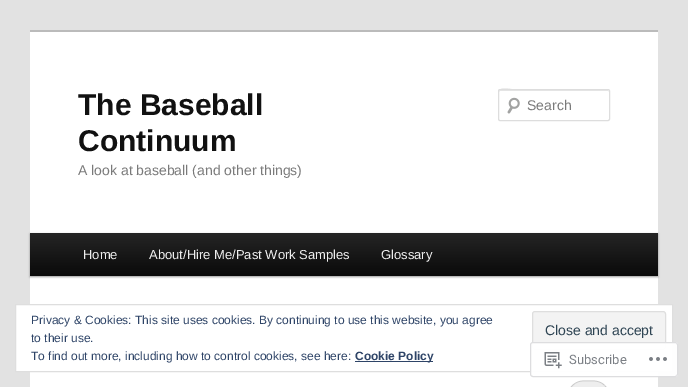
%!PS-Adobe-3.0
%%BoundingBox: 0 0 688 387
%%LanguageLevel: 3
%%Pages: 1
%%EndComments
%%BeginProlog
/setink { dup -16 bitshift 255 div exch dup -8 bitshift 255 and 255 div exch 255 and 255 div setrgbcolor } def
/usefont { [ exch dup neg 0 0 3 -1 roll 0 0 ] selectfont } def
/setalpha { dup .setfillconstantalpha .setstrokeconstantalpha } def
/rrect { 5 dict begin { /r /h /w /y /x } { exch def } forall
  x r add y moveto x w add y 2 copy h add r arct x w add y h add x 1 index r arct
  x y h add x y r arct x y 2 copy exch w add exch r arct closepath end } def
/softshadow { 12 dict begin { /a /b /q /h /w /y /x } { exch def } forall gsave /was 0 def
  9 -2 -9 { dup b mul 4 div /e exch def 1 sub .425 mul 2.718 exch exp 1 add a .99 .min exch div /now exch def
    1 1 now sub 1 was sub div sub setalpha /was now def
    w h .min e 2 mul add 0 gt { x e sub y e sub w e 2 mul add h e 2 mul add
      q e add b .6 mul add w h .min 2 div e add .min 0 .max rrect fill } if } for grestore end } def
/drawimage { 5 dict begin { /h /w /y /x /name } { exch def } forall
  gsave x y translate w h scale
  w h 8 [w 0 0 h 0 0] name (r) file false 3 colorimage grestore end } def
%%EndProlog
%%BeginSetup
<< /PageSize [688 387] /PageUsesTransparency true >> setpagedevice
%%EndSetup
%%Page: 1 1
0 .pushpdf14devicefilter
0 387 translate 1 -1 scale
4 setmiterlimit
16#E2E2E2 setink
0 0 688 387 rectfill
16#FFFFFF setink
30 32 628 355 rectfill
16#BBBBBB setink
30 30 628 2 rectfill
/LiberationSans-Bold 30 usefont
16#111111 setink
78 115 moveto (The Baseball) show
78 151 moveto (Continuum) show
/LiberationSans-Regular 14 usefont
16#7A7A7A setink
78 175 moveto (A look at baseball \(and other things\)) show
(img1.raw) 507 97 13 17 drawimage
16#E6E6E6 setink
500 91 moveto 609 91 lineto 609 92 lineto 608 90 lineto 518 90 lineto 514 90 499 85 499 92 curveto 499 91 499 91 500 91 curveto closepath fill
16#DDDDDD setink
498.5 89.5 111 31 1.5 rrect stroke
16#7A7A7A setink
527 110 moveto (Search) show
16#000000 setink
30 234 628 43 0 1 0.4 softshadow
gsave 30 233 moveto 658 233 lineto 658 276 lineto 30 276 lineto closepath clip newpath
<< /ShadingType 2 /ColorSpace /DeviceRGB /Coords [344 233 344 276] /Extend [true true] /Function << /FunctionType 2 /Domain [0 1] /C0 [0.145 0.145 0.145] /C1 [0.039 0.039 0.039] /N 1 >> >> shfill grestore
/LiberationSans-Regular 13 usefont
16#EEEEEE setink
[
    [(Home) 83 259]
    [(About/Hire Me/Past Work Samples) 149 259]
    [(Glossary) 381 259]
] { aload pop moveto show } forall
570 380 37 7 rectfill
(img2.raw) 567 378 43 9 drawimage
16#FFFFFF setink
15.5 304.5 moveto 672.5 304.5 lineto 672.5 371.5 lineto 15.5 371.5 lineto closepath gsave fill grestore
16#DEDEDE setink
stroke
/LiberationSans-Regular 12 usefont
16#2E4467 setink
31 324 moveto (Privacy & Cookies: This site uses cookies. By continuing to use this website, you agree) show
31 342 moveto (to their use.) show
16#F3F3F3 setink
532.5 311.5 133 38 2.5 rrect gsave fill grestore
16#DEDEDE setink
stroke
/LiberationSans-Regular 14 usefont
16#2E4453 setink
545 335 moveto (Close and accept) show
/LiberationSans-Regular 12 usefont
16#2E4467 setink
31 360 moveto (To find out more, including how to control cookies, see here:) show
355 361 78 1 rectfill
/LiberationSans-Bold 12 usefont
355 360 moveto (Cookie Policy) show
0.98 setalpha
16#FFFFFF setink
530 342 148 35 3 rrect fill
16#DCDCDE setink
530.5 342.5 147 34 2.5 rrect stroke
1 setalpha
(img3.raw) 544 352 18 17 drawimage
/Roboto-Regular 13 usefont
16#7B7F85 setink
569 364 moveto (Subscribe) show
(img4.raw) 649 357 18 4 drawimage
.poppdf14devicefilter showpage
%%EOF
